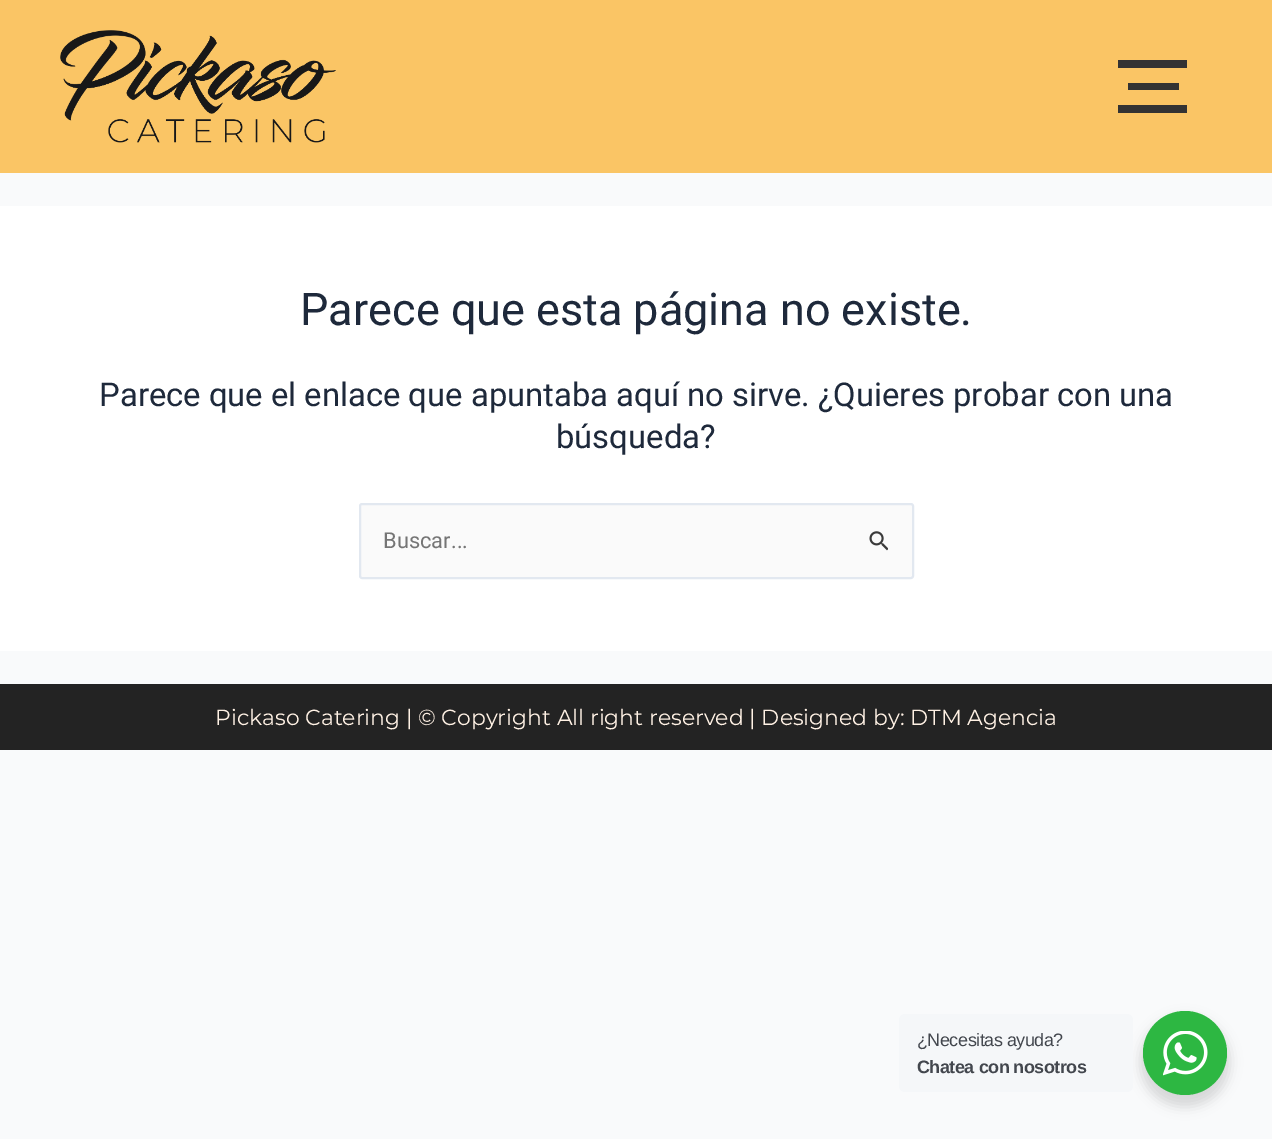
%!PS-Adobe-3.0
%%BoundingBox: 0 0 1272 1139
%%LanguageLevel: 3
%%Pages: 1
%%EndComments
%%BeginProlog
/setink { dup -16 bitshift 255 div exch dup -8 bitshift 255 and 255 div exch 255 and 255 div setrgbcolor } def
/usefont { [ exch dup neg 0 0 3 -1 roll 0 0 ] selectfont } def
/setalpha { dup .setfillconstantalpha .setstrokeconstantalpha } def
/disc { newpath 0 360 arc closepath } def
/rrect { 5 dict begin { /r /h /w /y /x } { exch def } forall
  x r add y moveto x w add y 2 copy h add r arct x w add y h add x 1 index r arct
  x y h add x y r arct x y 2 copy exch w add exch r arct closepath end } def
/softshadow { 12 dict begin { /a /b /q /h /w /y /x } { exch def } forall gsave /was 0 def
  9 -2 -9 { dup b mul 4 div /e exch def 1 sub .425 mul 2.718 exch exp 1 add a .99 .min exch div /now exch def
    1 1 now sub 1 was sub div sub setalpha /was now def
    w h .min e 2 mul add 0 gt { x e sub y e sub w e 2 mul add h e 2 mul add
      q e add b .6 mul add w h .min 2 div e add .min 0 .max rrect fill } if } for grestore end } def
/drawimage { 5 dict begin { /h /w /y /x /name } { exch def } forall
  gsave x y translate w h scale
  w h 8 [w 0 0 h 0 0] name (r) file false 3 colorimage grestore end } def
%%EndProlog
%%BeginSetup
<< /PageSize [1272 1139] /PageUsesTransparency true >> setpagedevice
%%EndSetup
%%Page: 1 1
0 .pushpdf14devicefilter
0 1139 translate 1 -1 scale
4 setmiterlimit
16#F9FAFB setink
0 0 1272 1139 rectfill
16#FAC565 setink
0 0 1272 173 rectfill
(img1.raw) 60 30 276 113 drawimage
[
    [1118 60 69 8 16#333333]
    [1128 83 51 7 16#333333]
    [1118 105 69 8 16#333333]
    [0 206 1272 445 16#FFFFFF]
] { aload pop setink rectfill } forall
/Roboto-Regular 45 usefont
16#1E293B setink
300 325 moveto (Parece que esta página no existe.) show
/Roboto-Regular 32.8 usefont
99 406 moveto (Parece que el enlace que apuntaba aquí no sirve. ¿Quieres probar con una) show
556 448 moveto (búsqueda?) show
16#FAFAFA setink
360 504 553 74 2 rrect gsave fill grestore
16#E2E8F0 setink
2 setlinewidth
stroke
/Roboto-Regular 21.9 usefont
16#757575 setink
383 548 moveto (Buscar...) show
(img2.raw) 869 531 19 20 drawimage
16#232323 setink
0 684 1272 66 rectfill
/Montserrat-Regular 21.9 usefont
16#FFF1E4 setink
215 725 moveto (Pickaso Catering | © Copyright All right reserved | Designed by: DTM Agencia) show
16#000000 setink
1140 1017 90 90 45 6 0.14 softshadow
16#F5F7F9 setink
899 1014 234 78 6 rrect fill
/LiberationSans-Regular 18 usefont
16#43474E setink
917 1046 moveto -0.5 0 (¿Necesitas ayuda?) ashow
/LiberationSans-Bold 18 usefont
917 1073 moveto -0.5 0 (Chatea con nosotros) ashow
16#2DB742 setink
1185 1053 42 disc fill
(img3.raw) 1163 1031 45 45 drawimage
.poppdf14devicefilter showpage
%%EOF
